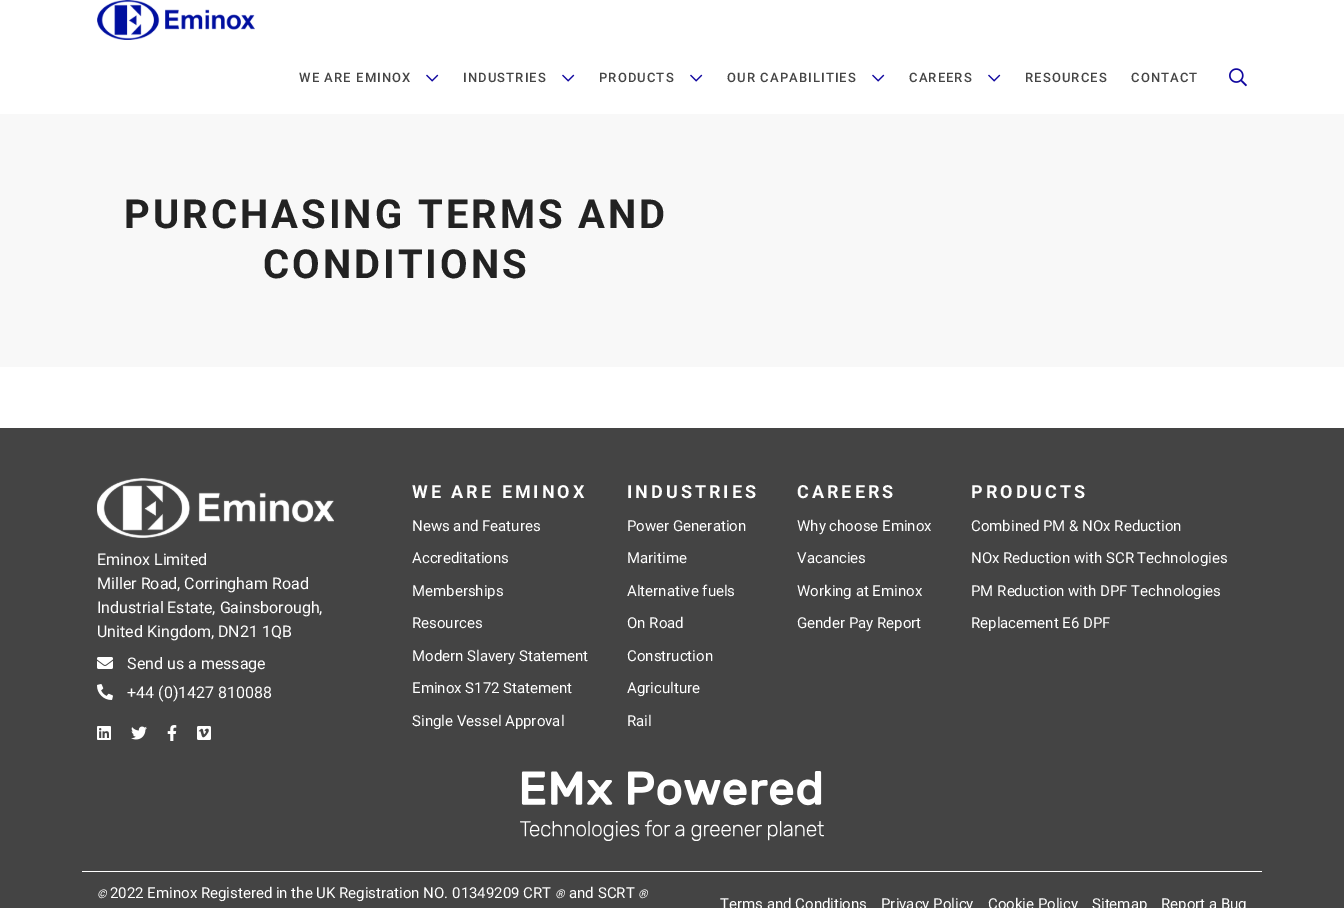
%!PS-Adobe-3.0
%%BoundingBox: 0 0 1344 908
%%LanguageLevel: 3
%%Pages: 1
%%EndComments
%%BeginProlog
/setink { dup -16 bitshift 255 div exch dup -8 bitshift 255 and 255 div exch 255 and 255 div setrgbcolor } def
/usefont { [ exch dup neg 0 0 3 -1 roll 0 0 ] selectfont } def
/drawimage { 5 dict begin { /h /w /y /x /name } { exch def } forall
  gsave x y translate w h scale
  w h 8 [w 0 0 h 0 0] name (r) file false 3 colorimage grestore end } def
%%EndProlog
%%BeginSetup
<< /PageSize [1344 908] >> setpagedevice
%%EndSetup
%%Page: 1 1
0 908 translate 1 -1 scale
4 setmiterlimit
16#FFFFFF setink
0 0 1344 908 rectfill
(img1.raw) 97 0 158 40 drawimage
/Roboto-Medium 13 usefont
16#444444 setink
299 82 moveto 1.1 0 (WE ARE EMINOX) ashow
(img2.raw) 426 74 13 8 drawimage
463 82 moveto 1.1 0 (INDUSTRIES) ashow
(img2.raw) 562 74 13 8 drawimage
599 82 moveto 1.1 0 (PRODUCTS) ashow
(img2.raw) 690 74 13 8 drawimage
727 82 moveto 1.1 0 (OUR CAPABILITIES) ashow
(img2.raw) 872 74 13 8 drawimage
909 82 moveto 1.1 0 (CAREERS) ashow
(img2.raw) 988 74 13 8 drawimage
1025 82 moveto 1.1 0 (RESOURCES) ashow
1131 82 moveto 1.1 0 (CONTACT) ashow
(img3.raw) 1229 68 18 19 drawimage
16#F8F8F8 setink
0 114 1344 253 rectfill
/Roboto-Bold 40 usefont
16#222222 setink
124 228 moveto 3 0 (PURCHASING TERMS AND) ashow
263 278 moveto 3 0 (CONDITIONS) ashow
16#444444 setink
0 428 1344 480 rectfill
(img4.raw) 97 478 237 60 drawimage
/Roboto-Regular 16 usefont
16#FFFFFF setink
[
    [(Eminox Limited) 97 565]
    [(Miller Road, Corringham Road) 97 589]
    [(Industrial Estate, Gainsborough,) 97 613]
    [(United Kingdom, DN21 1QB) 97 637]
] { aload pop moveto show } forall
(img5.raw) 97 657 16 12 drawimage
127 669 moveto (Send us a message) show
(img6.raw) 97 684 16 16 drawimage
127 698 moveto (+44 \(0\)1427 810088) show
(img7.raw) 97 726 14 14 drawimage
(img8.raw) 131 726 16 14 drawimage
(img9.raw) 167 725 10 16 drawimage
(img10.raw) 197 726 14 14 drawimage
/Roboto-Bold 18 usefont
412 498 moveto 3 0 (WE ARE EMINOX) ashow
/Roboto-Regular 15 usefont
[
    [(News and Features) 412 531]
    [(Accreditations) 412 563]
    [(Memberships) 412 596]
    [(Resources) 412 628]
    [(Modern Slavery Statement) 412 661]
    [(Eminox S172 Statement) 412 693]
    [(Single Vessel Approval) 412 726]
] { aload pop moveto show } forall
/Roboto-Bold 18 usefont
627 498 moveto 3 0 (INDUSTRIES) ashow
/Roboto-Regular 15 usefont
[
    [(Power Generation) 627 531]
    [(Maritime) 627 563]
    [(Alternative fuels) 627 596]
    [(On Road) 627 628]
    [(Construction) 627 661]
    [(Agriculture) 627 693]
    [(Rail) 627 726]
] { aload pop moveto show } forall
/Roboto-Bold 18 usefont
797 498 moveto 3 0 (CAREERS) ashow
/Roboto-Regular 15 usefont
[
    [(Why choose Eminox) 797 531]
    [(Vacancies) 797 563]
    [(Working at Eminox) 797 596]
    [(Gender Pay Report) 797 628]
] { aload pop moveto show } forall
/Roboto-Bold 18 usefont
971 498 moveto 3 0 (PRODUCTS) ashow
/Roboto-Regular 15 usefont
[
    [(Combined PM & NOx Reduction) 971 531]
    [(NOx Reduction with SCR Technologies) 971 563]
    [(PM Reduction with DPF Technologies) 971 596]
    [(Replacement E6 DPF) 971 628]
] { aload pop moveto show } forall
(img11.raw) 520 771 304 70 drawimage
82 871 1180 1 rectfill
/Roboto-Italic 12 usefont
97 898 moveto (©) show
/Roboto-Regular 15 usefont
110 898 moveto (2022 Eminox Registered in the UK Registration NO. 01349209 CRT) show
/Roboto-Italic 12 usefont
555 898 moveto (®) show
/Roboto-Regular 15 usefont
569 898 moveto (and SCRT) show
/Roboto-Italic 12 usefont
638 898 moveto (®) show
/Roboto-Regular 15 usefont
[
    [(Terms and Conditions) 720 909]
    [(Privacy Policy) 881 909]
    [(Cookie Policy) 988 909]
    [(Sitemap) 1092 909]
    [(Report a Bug) 1161 909]
] { aload pop moveto show } forall
showpage
%%EOF
